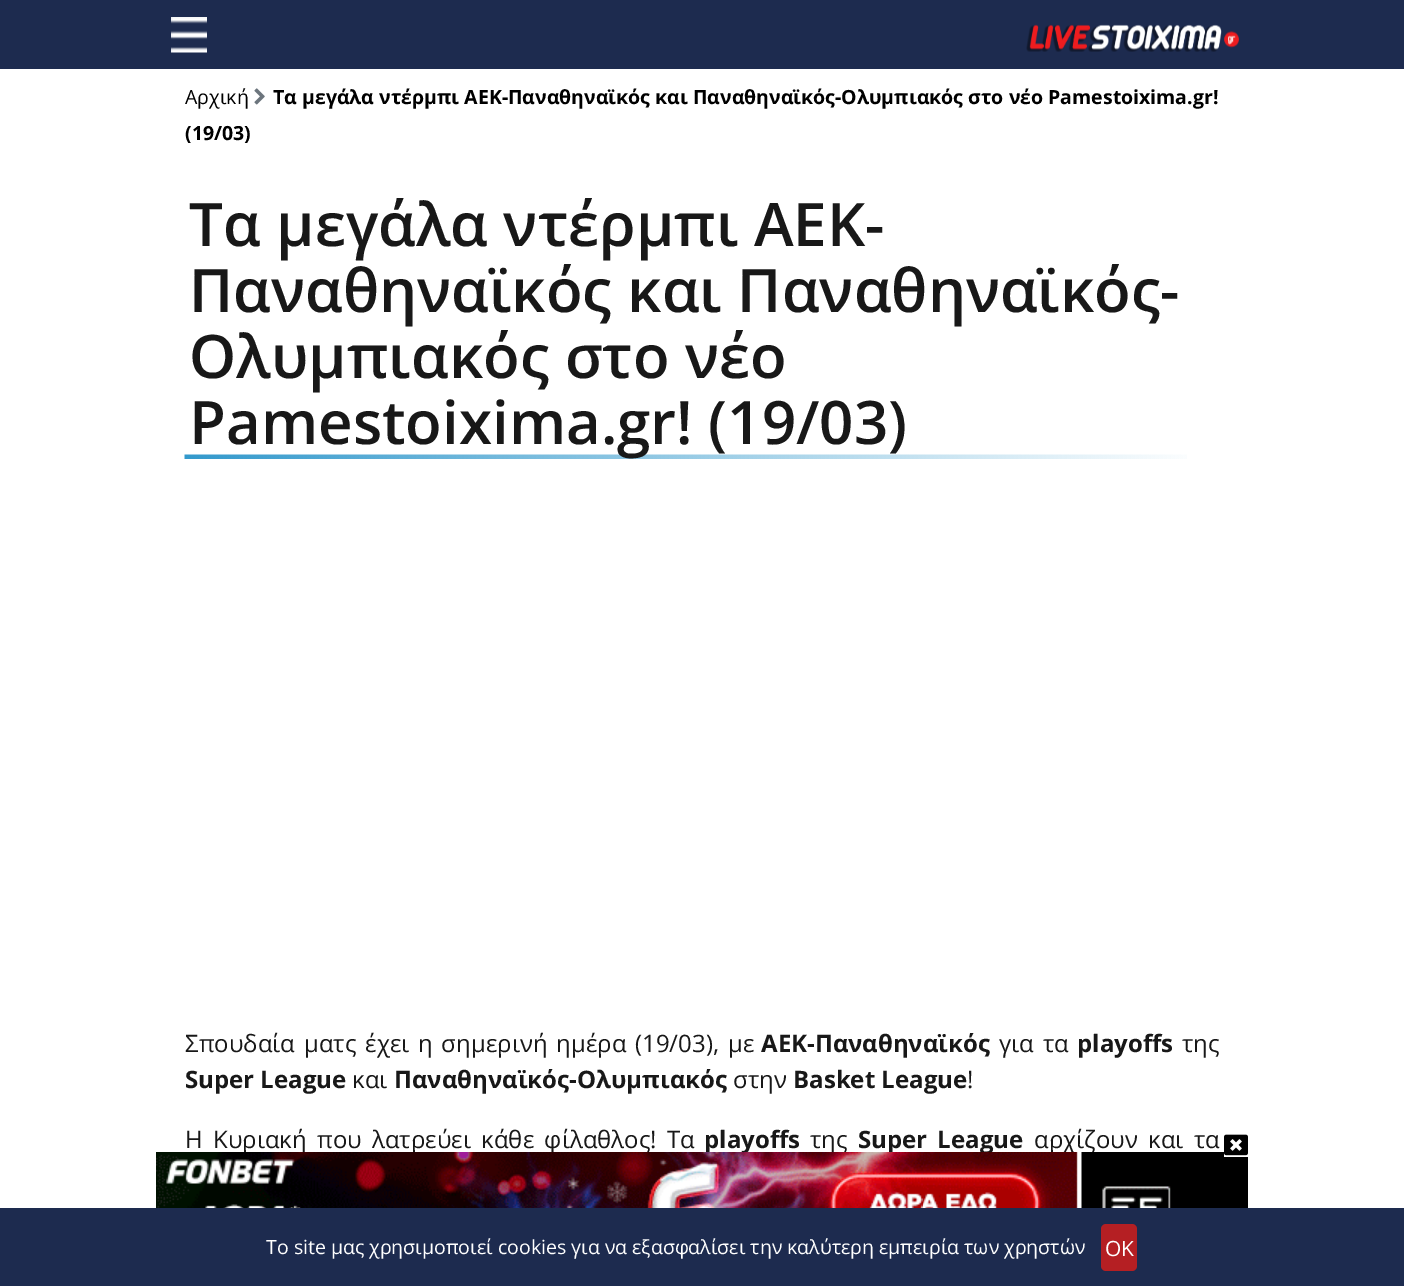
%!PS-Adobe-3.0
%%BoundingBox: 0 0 1404 1286
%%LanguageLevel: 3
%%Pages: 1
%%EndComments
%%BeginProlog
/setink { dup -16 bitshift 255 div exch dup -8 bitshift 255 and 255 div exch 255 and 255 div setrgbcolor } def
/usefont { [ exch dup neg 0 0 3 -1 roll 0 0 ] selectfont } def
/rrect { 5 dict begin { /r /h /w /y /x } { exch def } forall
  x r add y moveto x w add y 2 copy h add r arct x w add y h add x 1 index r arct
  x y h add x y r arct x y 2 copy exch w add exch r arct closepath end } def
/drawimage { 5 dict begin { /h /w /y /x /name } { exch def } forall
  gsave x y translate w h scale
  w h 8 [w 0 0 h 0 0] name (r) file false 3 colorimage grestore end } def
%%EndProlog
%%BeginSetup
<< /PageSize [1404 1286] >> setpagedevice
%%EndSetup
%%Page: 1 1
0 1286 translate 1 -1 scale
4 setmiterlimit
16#FFFFFF setink
0 0 1404 1286 rectfill
16#1D2B4F setink
0 0 1404 69 rectfill
(img1.raw) 171 17 36 36 drawimage
(img2.raw) 1026 24 213 28 drawimage
/OpenSans-Regular 19.5 usefont
16#000000 setink
185 104 moveto (Αρχική) show
(img3.raw) 254 88 11 17 drawimage
/OpenSans-Bold 19.5 usefont
273 104 moveto (Τα μεγάλα ντέρμπι ΑΕΚ-Παναθηναϊκός και Παναθηναϊκός-Ολυμπιακός στο νέο Pamestoixima.gr!) show
185 140 moveto (\(19/03\)) show
(img4.raw) 184 454 1003 5 drawimage
/OpenSans-SemiBold 60 usefont
16#181818 setink
[
    [(Τα μεγάλα ντέρμπι ΑΕΚ-) 189 246]
    [(Παναθηναϊκός και Παναθηναϊκός-) 189 312]
    [(Ολυμπιακός στο νέο) 189 378]
    [(Pamestoixima.gr! \(19/03\)) 189 444]
] { aload pop moveto show } forall
/OpenSans-Regular 24 usefont
185 1052 moveto 2.5 0 32 (Σπουδαία ματς έχει η σημερινή ημέρα \(19/03\), με) widthshow
/OpenSans-Bold 24 usefont
761 1052 moveto (ΑΕΚ-Παναθηναϊκός) show
/OpenSans-Regular 24 usefont
999 1052 moveto 2.5 0 32 (για τα) widthshow
/OpenSans-Bold 24 usefont
1077 1052 moveto (playoffs) show
/OpenSans-Regular 24 usefont
1182 1052 moveto (της) show
/OpenSans-Bold 24 usefont
185 1088 moveto (Super League) show
/OpenSans-Regular 24 usefont
352 1088 moveto (και) show
/OpenSans-Bold 24 usefont
394 1088 moveto (Παναθηναϊκός-Ολυμπιακός) show
/OpenSans-Regular 24 usefont
733 1088 moveto (στην) show
/OpenSans-Bold 24 usefont
793 1088 moveto (Basket League) show
/OpenSans-Regular 24 usefont
967 1088 moveto (!) show
185 1148 moveto 4 0 32 (Η Κυριακή που λατρεύει κάθε φίλαθλος! Τα) widthshow
/OpenSans-Bold 24 usefont
704 1148 moveto (playoffs) show
/OpenSans-Regular 24 usefont
810 1148 moveto (της) show
/OpenSans-Bold 24 usefont
858 1148 moveto 4 0 32 (Super League) widthshow
/OpenSans-Regular 24 usefont
1034 1148 moveto 4 0 32 (αρχίζουν και τα) widthshow
(img6.raw) 156 1152 1092 56 drawimage
16#FFFFFF setink
1224 1152 24 5 rectfill
(img5.raw) 1224 1134 24 22 drawimage
16#1D2B4F setink
0 1208 1404 78 rectfill
/OpenSans-Regular 19.5 usefont
16#FFFFFF setink
266 1254 moveto (To site μας χρησιμοποιεί cookies για να εξασφαλίσει την καλύτερη εμπειρία των χρηστών) show
16#B51F23 setink
1101 1224 36 47 5 rrect fill
/OpenSans-Regular 21 usefont
16#FFFFFF setink
1105 1256 moveto (ΟΚ) show
showpage
%%EOF
